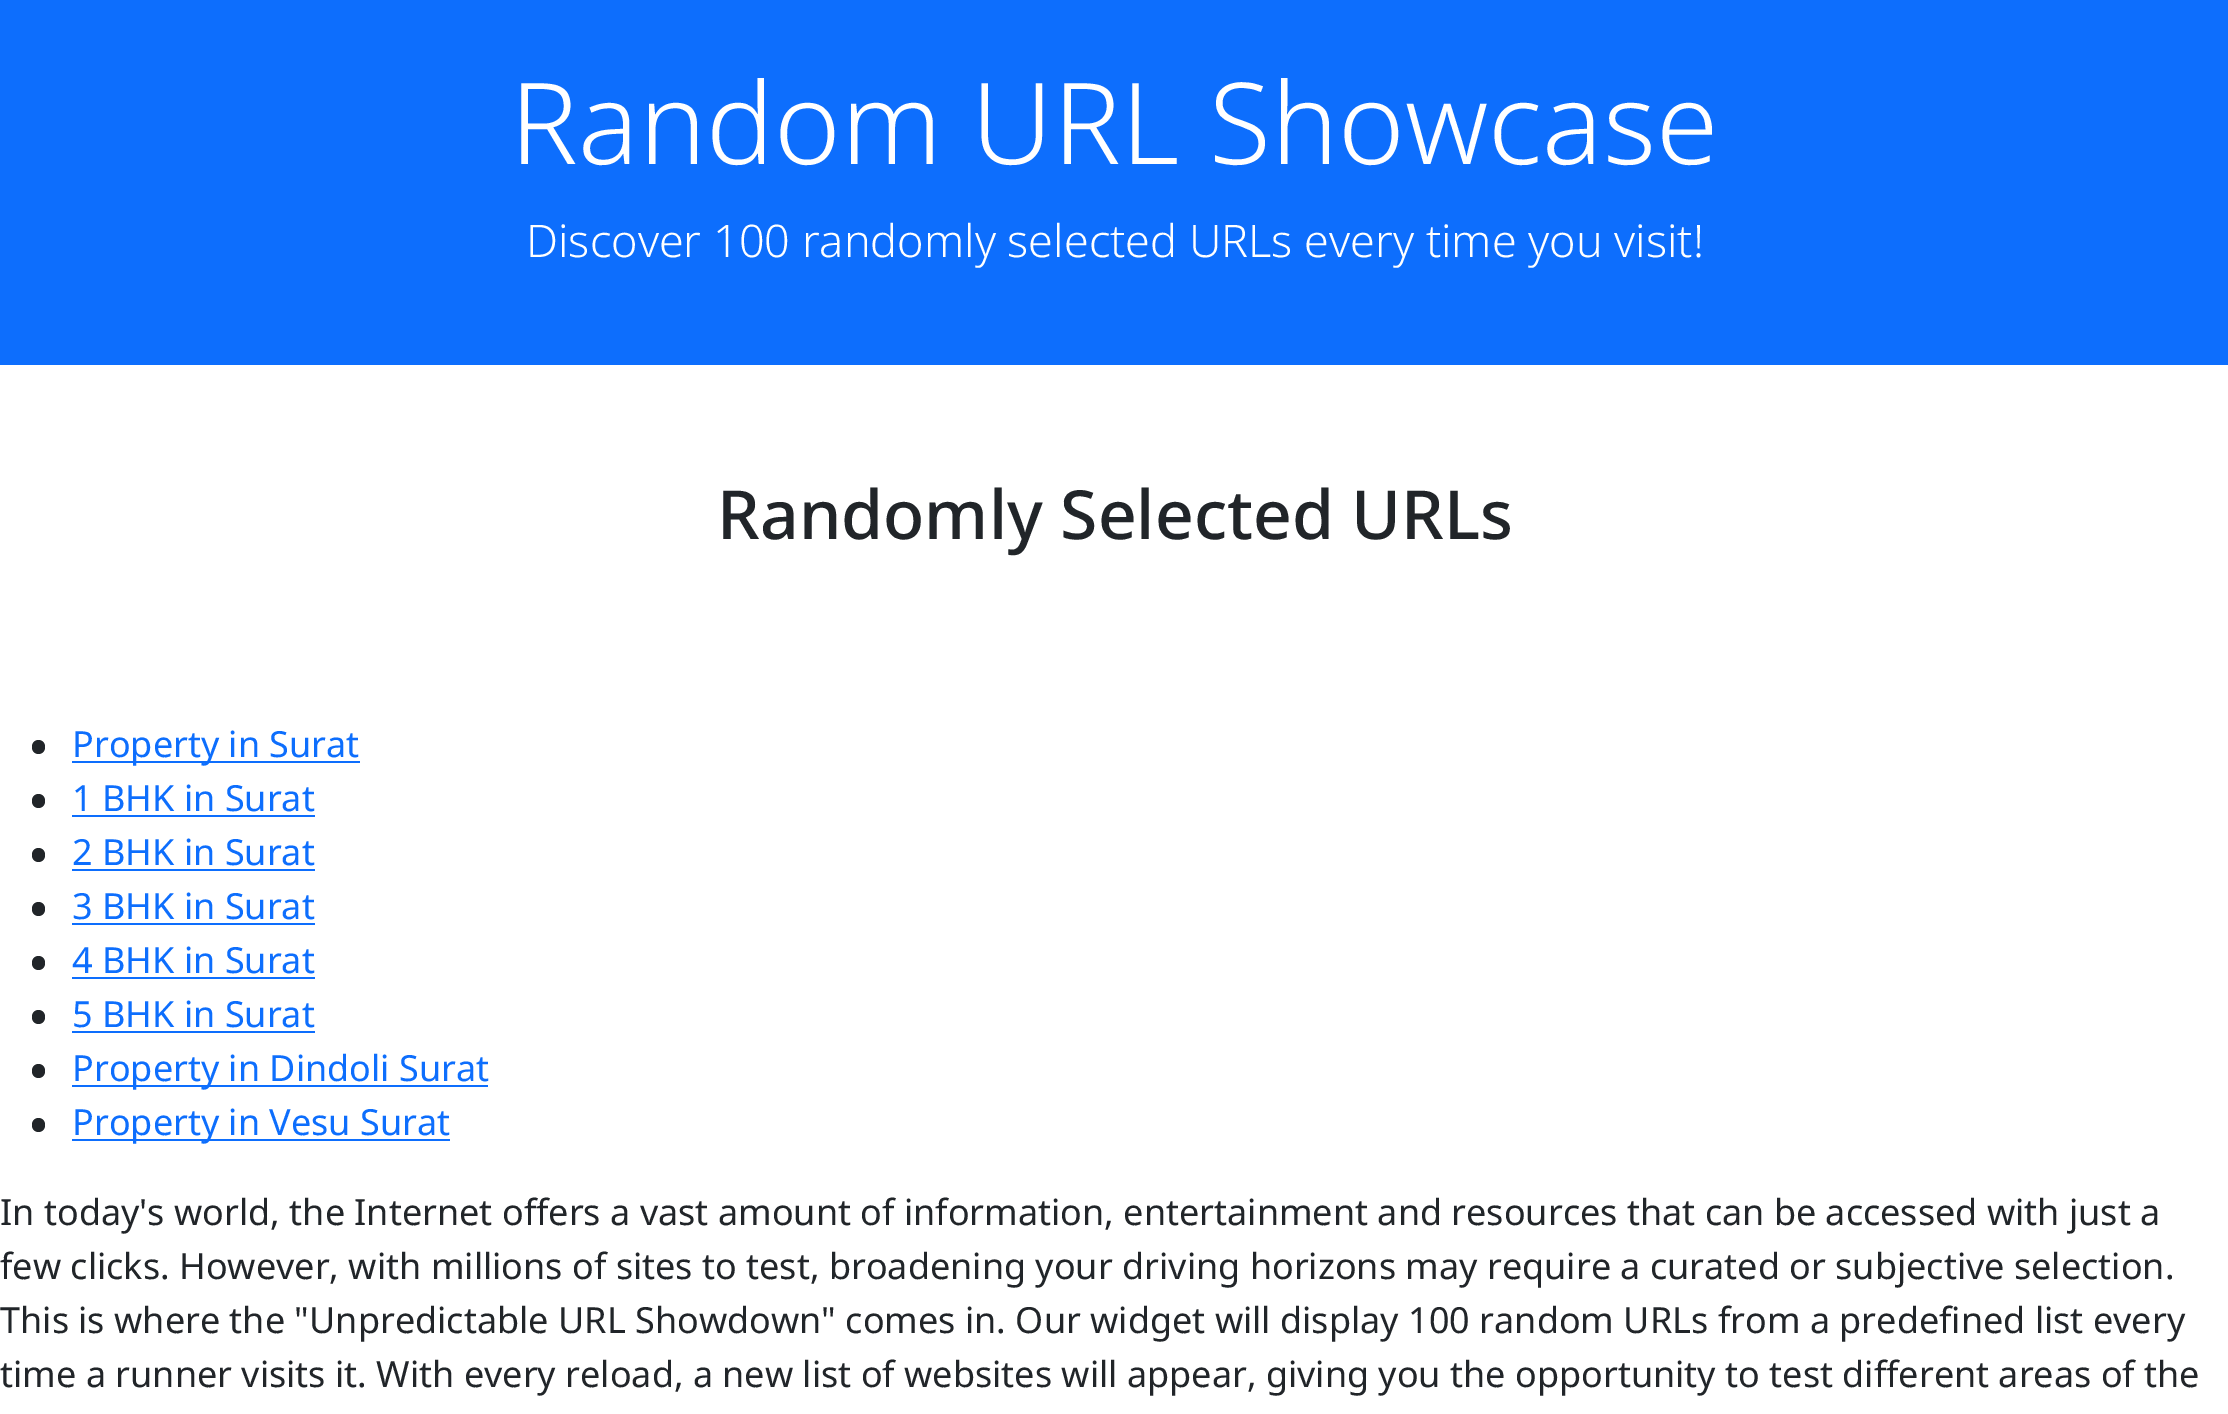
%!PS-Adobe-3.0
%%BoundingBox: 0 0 2228 1414
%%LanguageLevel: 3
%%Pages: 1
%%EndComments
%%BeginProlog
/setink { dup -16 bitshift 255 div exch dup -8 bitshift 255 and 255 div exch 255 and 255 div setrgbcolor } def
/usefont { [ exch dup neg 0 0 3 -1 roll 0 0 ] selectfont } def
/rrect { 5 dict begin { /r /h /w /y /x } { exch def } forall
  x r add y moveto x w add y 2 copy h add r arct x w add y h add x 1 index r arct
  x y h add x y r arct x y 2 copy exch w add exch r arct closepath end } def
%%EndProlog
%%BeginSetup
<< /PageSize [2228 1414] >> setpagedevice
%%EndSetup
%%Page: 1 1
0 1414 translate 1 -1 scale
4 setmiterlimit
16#FFFFFF setink
0 0 2228 1414 rectfill
16#0D6EFD setink
0 0 2228 365 rectfill
/NotoSans-Light 113.25 usefont
16#FFFFFF setink
510 164 moveto (Random URL Showcase) show
/NotoSans-Light 45 usefont
526 257 moveto (Discover 100 randomly selected URLs every time you visit!) show
/NotoSans-Medium 67.75 usefont
16#212529 setink
717 539 moveto (Randomly Selected URLs) show
32 740 13 14 6.5 rrect fill
16#0D6EFD setink
72 761 288 2 rectfill
/NotoSans-Regular 36 usefont
72 757 moveto (Property in Surat) show
16#212529 setink
32 794 13 14 6.5 rrect fill
16#0D6EFD setink
72 811 moveto (1 BHK in Surat) show
72 815 243 2 rectfill
16#212529 setink
32 848 13 14 6.5 rrect fill
16#0D6EFD setink
72 865 moveto (2 BHK in Surat) show
72 869 243 2 rectfill
16#212529 setink
32 902 13 14 6.5 rrect fill
16#0D6EFD setink
72 919 moveto (3 BHK in Surat) show
72 923 243 2 rectfill
16#212529 setink
32 956 13 14 6.5 rrect fill
16#0D6EFD setink
72 973 moveto (4 BHK in Surat) show
72 977 243 2 rectfill
16#212529 setink
32 1010 13 14 6.5 rrect fill
16#0D6EFD setink
72 1027 moveto (5 BHK in Surat) show
72 1031 243 2 rectfill
16#212529 setink
32 1064 13 14 6.5 rrect fill
16#0D6EFD setink
72 1085 416 2 rectfill
72 1081 moveto (Property in Dindoli Surat) show
16#212529 setink
32 1118 13 14 6.5 rrect fill
16#0D6EFD setink
72 1139 378 2 rectfill
72 1135 moveto (Property in Vesu Surat) show
16#212529 setink
[
    [(In today's world, the Internet offers a vast amount of information, entertainment and resources that can be accessed with just a) 0 1225]
    [(few clicks. However, with millions of sites to test, broadening your driving horizons may require a curated or subjective selection.) 0 1279]
    [(This is where the "Unpredictable URL Showdown" comes in. Our widget will display 100 random URLs from a predefined list every) 0 1333]
    [(time a runner visits it. With every reload, a new list of websites will appear, giving you the opportunity to test different areas of the) 0 1387]
] { aload pop moveto show } forall
showpage
%%EOF
